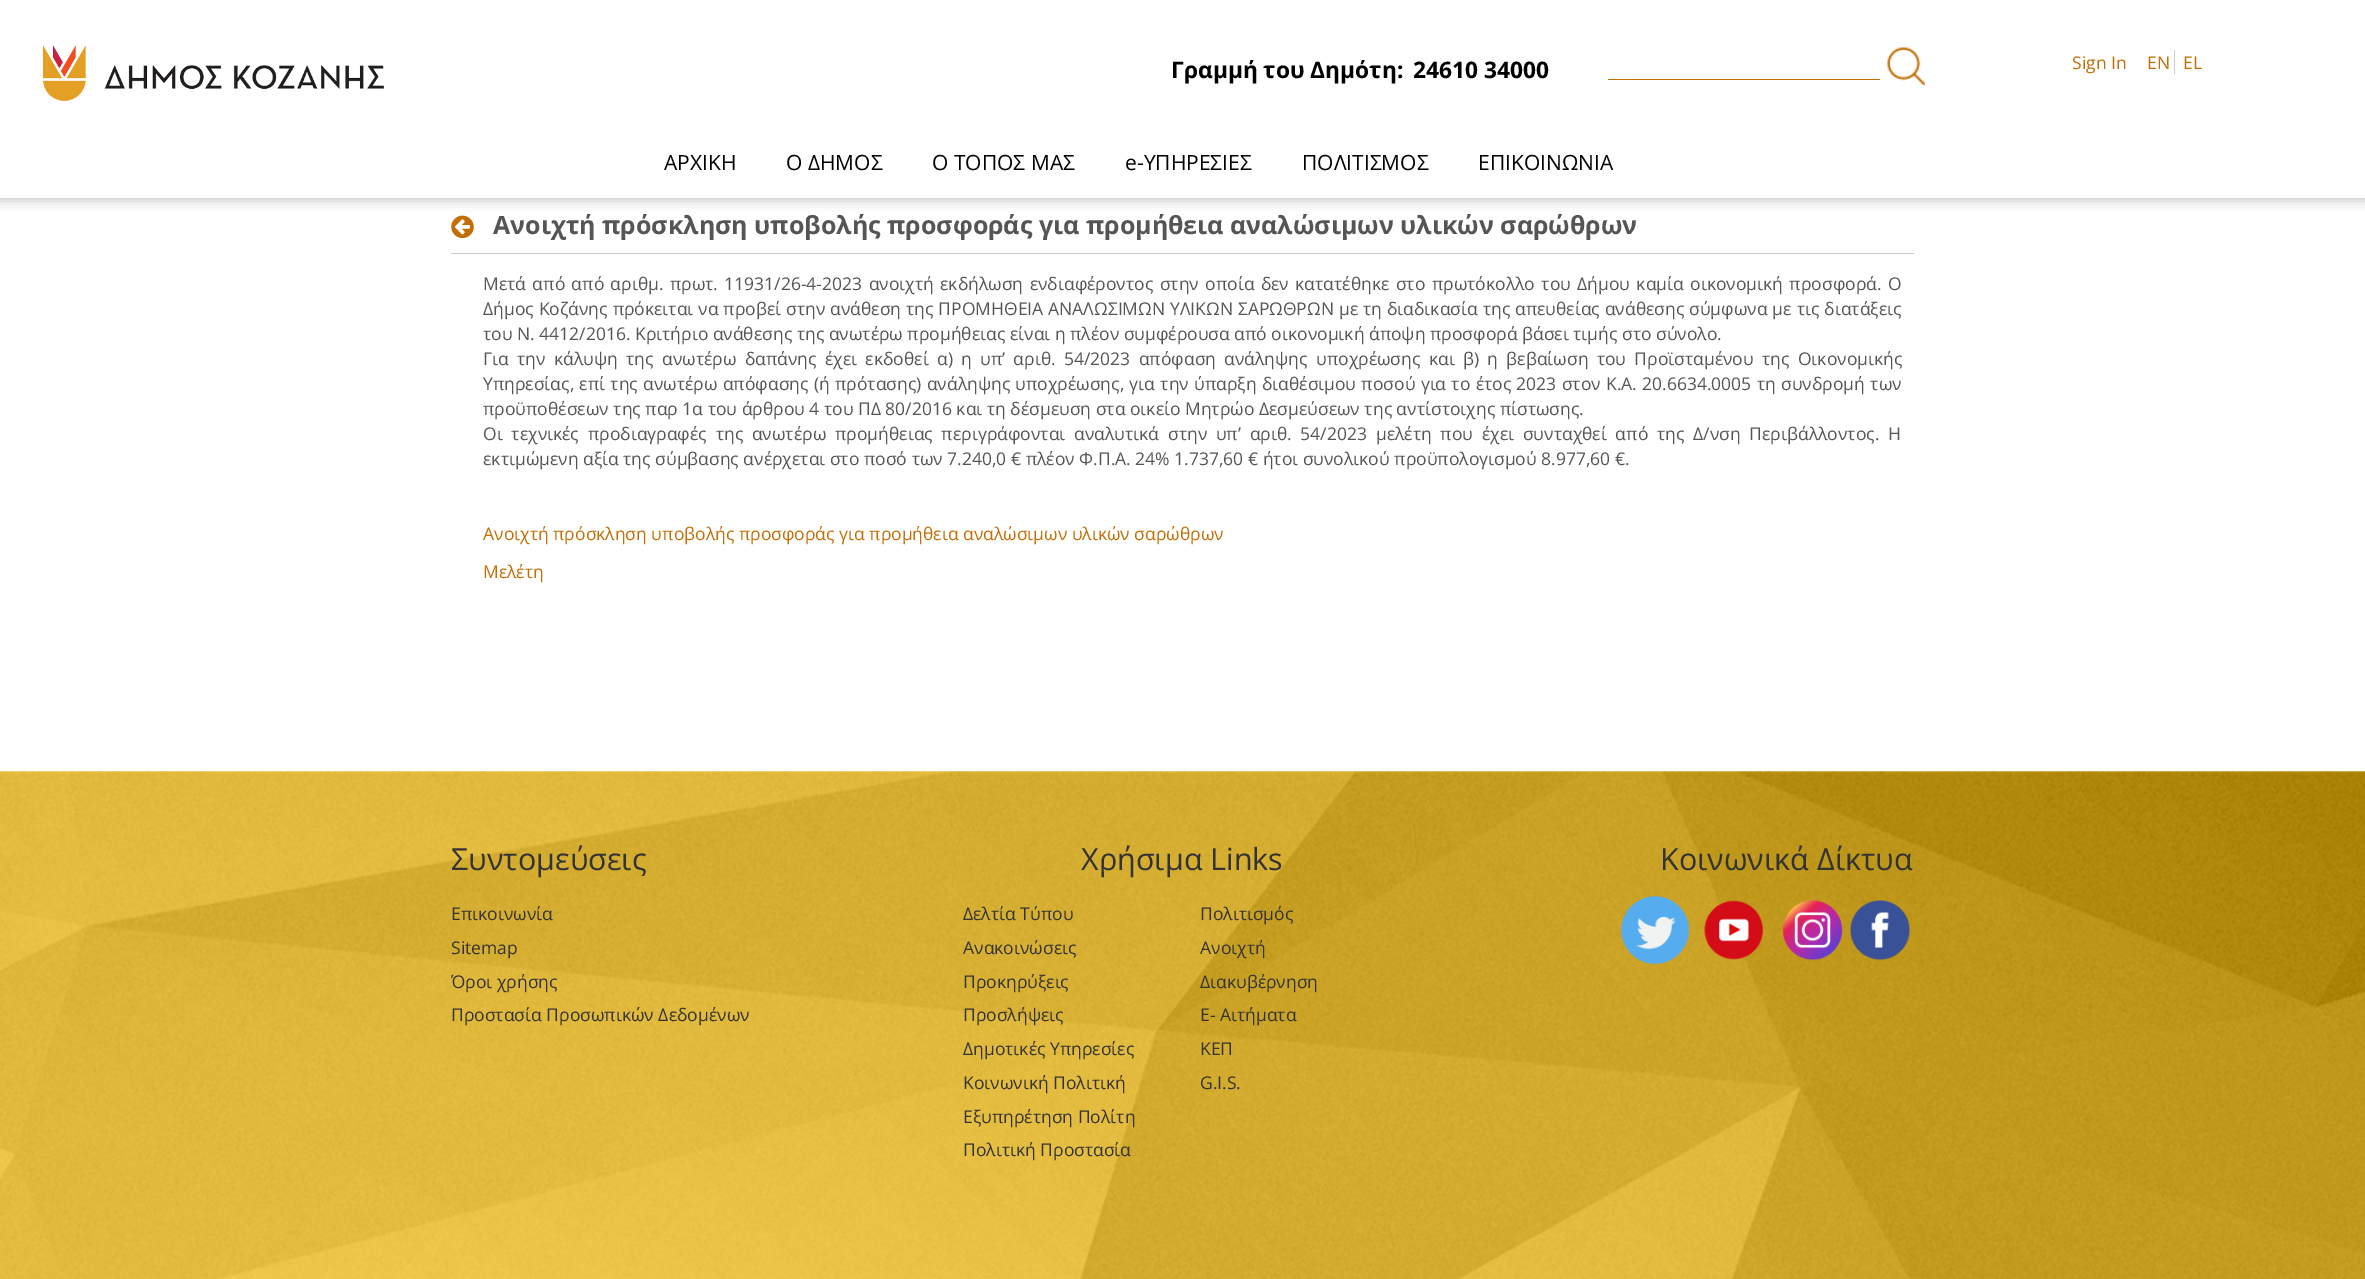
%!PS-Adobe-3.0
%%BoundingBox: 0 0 2365 1279
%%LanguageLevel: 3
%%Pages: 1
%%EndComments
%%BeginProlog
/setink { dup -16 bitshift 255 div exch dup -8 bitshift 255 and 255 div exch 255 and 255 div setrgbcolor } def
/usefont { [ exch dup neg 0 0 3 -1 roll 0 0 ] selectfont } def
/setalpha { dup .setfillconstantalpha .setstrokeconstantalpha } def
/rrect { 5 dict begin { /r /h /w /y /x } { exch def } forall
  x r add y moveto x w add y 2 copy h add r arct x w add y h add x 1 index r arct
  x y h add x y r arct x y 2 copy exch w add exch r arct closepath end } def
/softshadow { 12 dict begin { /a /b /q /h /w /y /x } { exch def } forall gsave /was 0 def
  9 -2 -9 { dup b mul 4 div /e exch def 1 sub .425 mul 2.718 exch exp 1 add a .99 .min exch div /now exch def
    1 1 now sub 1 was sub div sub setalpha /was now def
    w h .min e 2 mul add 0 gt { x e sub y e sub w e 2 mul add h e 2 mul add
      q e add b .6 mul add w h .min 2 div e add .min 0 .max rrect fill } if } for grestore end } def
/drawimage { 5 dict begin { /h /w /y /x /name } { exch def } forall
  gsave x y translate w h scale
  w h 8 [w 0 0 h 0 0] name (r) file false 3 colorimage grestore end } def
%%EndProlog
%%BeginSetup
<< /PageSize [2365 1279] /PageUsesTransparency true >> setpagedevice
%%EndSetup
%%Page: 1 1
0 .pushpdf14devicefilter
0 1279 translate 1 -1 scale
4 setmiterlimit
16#FFFFFF setink
0 0 2365 1279 rectfill
16#292929 setink
-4 -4 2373 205 0 5.5 0.25 softshadow
16#FFFFFF setink
0 0 2365 198 rectfill
(img1.raw) 42 45 342 57 drawimage
/OpenSans-Bold 22.75 usefont
16#000000 setink
1171 78 moveto (Γραμμή του Δημότη:) show
1413 78 moveto (24610 34000) show
16#C46D04 setink
1608 79 272 1 rectfill
(img2.raw) 1887 47 38 39 drawimage
/OpenSans-Regular 17.5 usefont
2072 69 moveto (Sign In) show
2147 69 moveto (EN) show
16#CCCCCC setink
2174 50 1 24 rectfill
16#C46D04 setink
2183 69 moveto (EL) show
/OpenSans-Regular 21 usefont
16#000000 setink
[
    [(ΑΡΧΙΚΗ) 664 170]
    [(Ο ΔΗΜΟΣ) 786 170]
    [(Ο ΤΟΠΟΣ ΜΑΣ) 932 170]
    [(e-ΥΠΗΡΕΣΙΕΣ) 1125 170]
    [(ΠΟΛΙΤΙΣΜΟΣ) 1302 170]
    [(ΕΠΙΚΟΙΝΩΝΙΑ) 1478 170]
] { aload pop moveto show } forall
16#C8C9CA setink
451 253 1463 1 rectfill
(img3.raw) 451 215 23 24 drawimage
/OpenSans-Bold 25 usefont
16#555555 setink
493 234 moveto (Ανοιχτή πρόσκληση υποβολής προσφοράς για προμήθεια αναλώσιμων υλικών σαρώθρων) show
/OpenSans-Regular 17.5 usefont
483 290 moveto 1.85 0 32 (Μετά από από αριθμ. πρωτ. 11931/26-4-2023 ανοιχτή εκδήλωση ενδιαφέροντος στην οποία δεν κατατέθηκε στο πρωτόκολλο του Δήμου καμία οικονομική προσφορά. Ο) widthshow
483 315 moveto 0.4 0 32 (Δήμος Κοζάνης πρόκειται να προβεί στην ανάθεση της ΠΡΟΜΗΘΕΙΑ ΑΝΑΛΩΣΙΜΩΝ ΥΛΙΚΩΝ ΣΑΡΩΘΡΩΝ με τη διαδικασία της απευθείας ανάθεσης σύμφωνα με τις διατάξεις) widthshow
483 340 moveto (του Ν. 4412/2016. Κριτήριο ανάθεσης της ανωτέρω προμήθειας είναι η πλέον συμφέρουσα από οικονομική άποψη προσφορά βάσει τιμής στο σύνολο.) show
483 365 moveto 3.8 0 32 (Για την κάλυψη της ανωτέρω δαπάνης έχει εκδοθεί α\) η υπ’ αριθ. 54/2023 απόφαση ανάληψης υποχρέωσης και β\) η βεβαίωση του Προϊσταμένου της Οικονομικής) widthshow
483 390 moveto 0.75 0 32 (Υπηρεσίας, επί της ανωτέρω απόφασης \(ή πρότασης\) ανάληψης υποχρέωσης, για την ύπαρξη διαθέσιμου ποσού για το έτος 2023 στον Κ.Α. 20.6634.0005 τη συνδρομή των) widthshow
483 415 moveto (προϋποθέσεων της παρ 1α του άρθρου 4 του ΠΔ 80/2016 και τη δέσμευση στα οικείο Μητρώο Δεσμεύσεων της αντίστοιχης πίστωσης.) show
483 440 moveto 4.25 0 32 (Οι τεχνικές προδιαγραφές της ανωτέρω προμήθειας περιγράφονται αναλυτικά στην υπ’ αριθ. 54/2023 μελέτη που έχει συνταχθεί από της Δ/νση Περιβάλλοντος. Η) widthshow
483 465 moveto (εκτιμώμενη αξία της σύμβασης ανέρχεται στο ποσό των 7.240,0 € πλέον Φ.Π.Α. 24% 1.737,60 € ήτοι συνολικού προϋπολογισμού 8.977,60 €.) show
16#C46D04 setink
483 540 moveto (Ανοιχτή πρόσκληση υποβολής προσφοράς για προμήθεια αναλώσιμων υλικών σαρώθρων) show
483 578 moveto (Μελέτη) show
(img4.raw) 0 771 2365 508 drawimage
/OpenSans-Regular 30.5 usefont
16#333333 setink
451 870 moveto (Συντομεύσεις) show
/OpenSans-Regular 17.5 usefont
[
    [(Επικοινωνία) 451 920]
    [(Sitemap) 451 954]
    [(Όροι χρήσης) 451 988]
    [(Προστασία Προσωπικών Δεδομένων) 451 1021]
] { aload pop moveto show } forall
/OpenSans-Regular 30.5 usefont
1081 870 moveto (Χρήσιμα Links) show
/OpenSans-Regular 17.5 usefont
[
    [(Δελτία Τύπου) 963 920]
    [(Ανακοινώσεις) 963 954]
    [(Προκηρύξεις) 963 988]
    [(Προσλήψεις) 963 1021]
    [(Δημοτικές Υπηρεσίες) 963 1055]
    [(Κοινωνική Πολιτική) 963 1089]
    [(Εξυπηρέτηση Πολίτη) 963 1123]
    [(Πολιτική Προστασία) 963 1156]
    [(Πολιτισμός) 1200 920]
    [(Ανοιχτή) 1200 954]
    [(Διακυβέρνηση) 1200 988]
    [(Ε- Αιτήματα) 1200 1021]
    [(ΚΕΠ) 1200 1055]
    [(G.I.S.) 1200 1089]
] { aload pop moveto show } forall
/OpenSans-Regular 30.5 usefont
1660 870 moveto (Κοινωνικά Δίκτυα) show
(img5.raw) 1621 896 68 68 drawimage
(img6.raw) 1704 900 59 60 drawimage
(img7.raw) 1782 900 61 61 drawimage
(img8.raw) 1850 900 61 61 drawimage
.poppdf14devicefilter showpage
%%EOF
